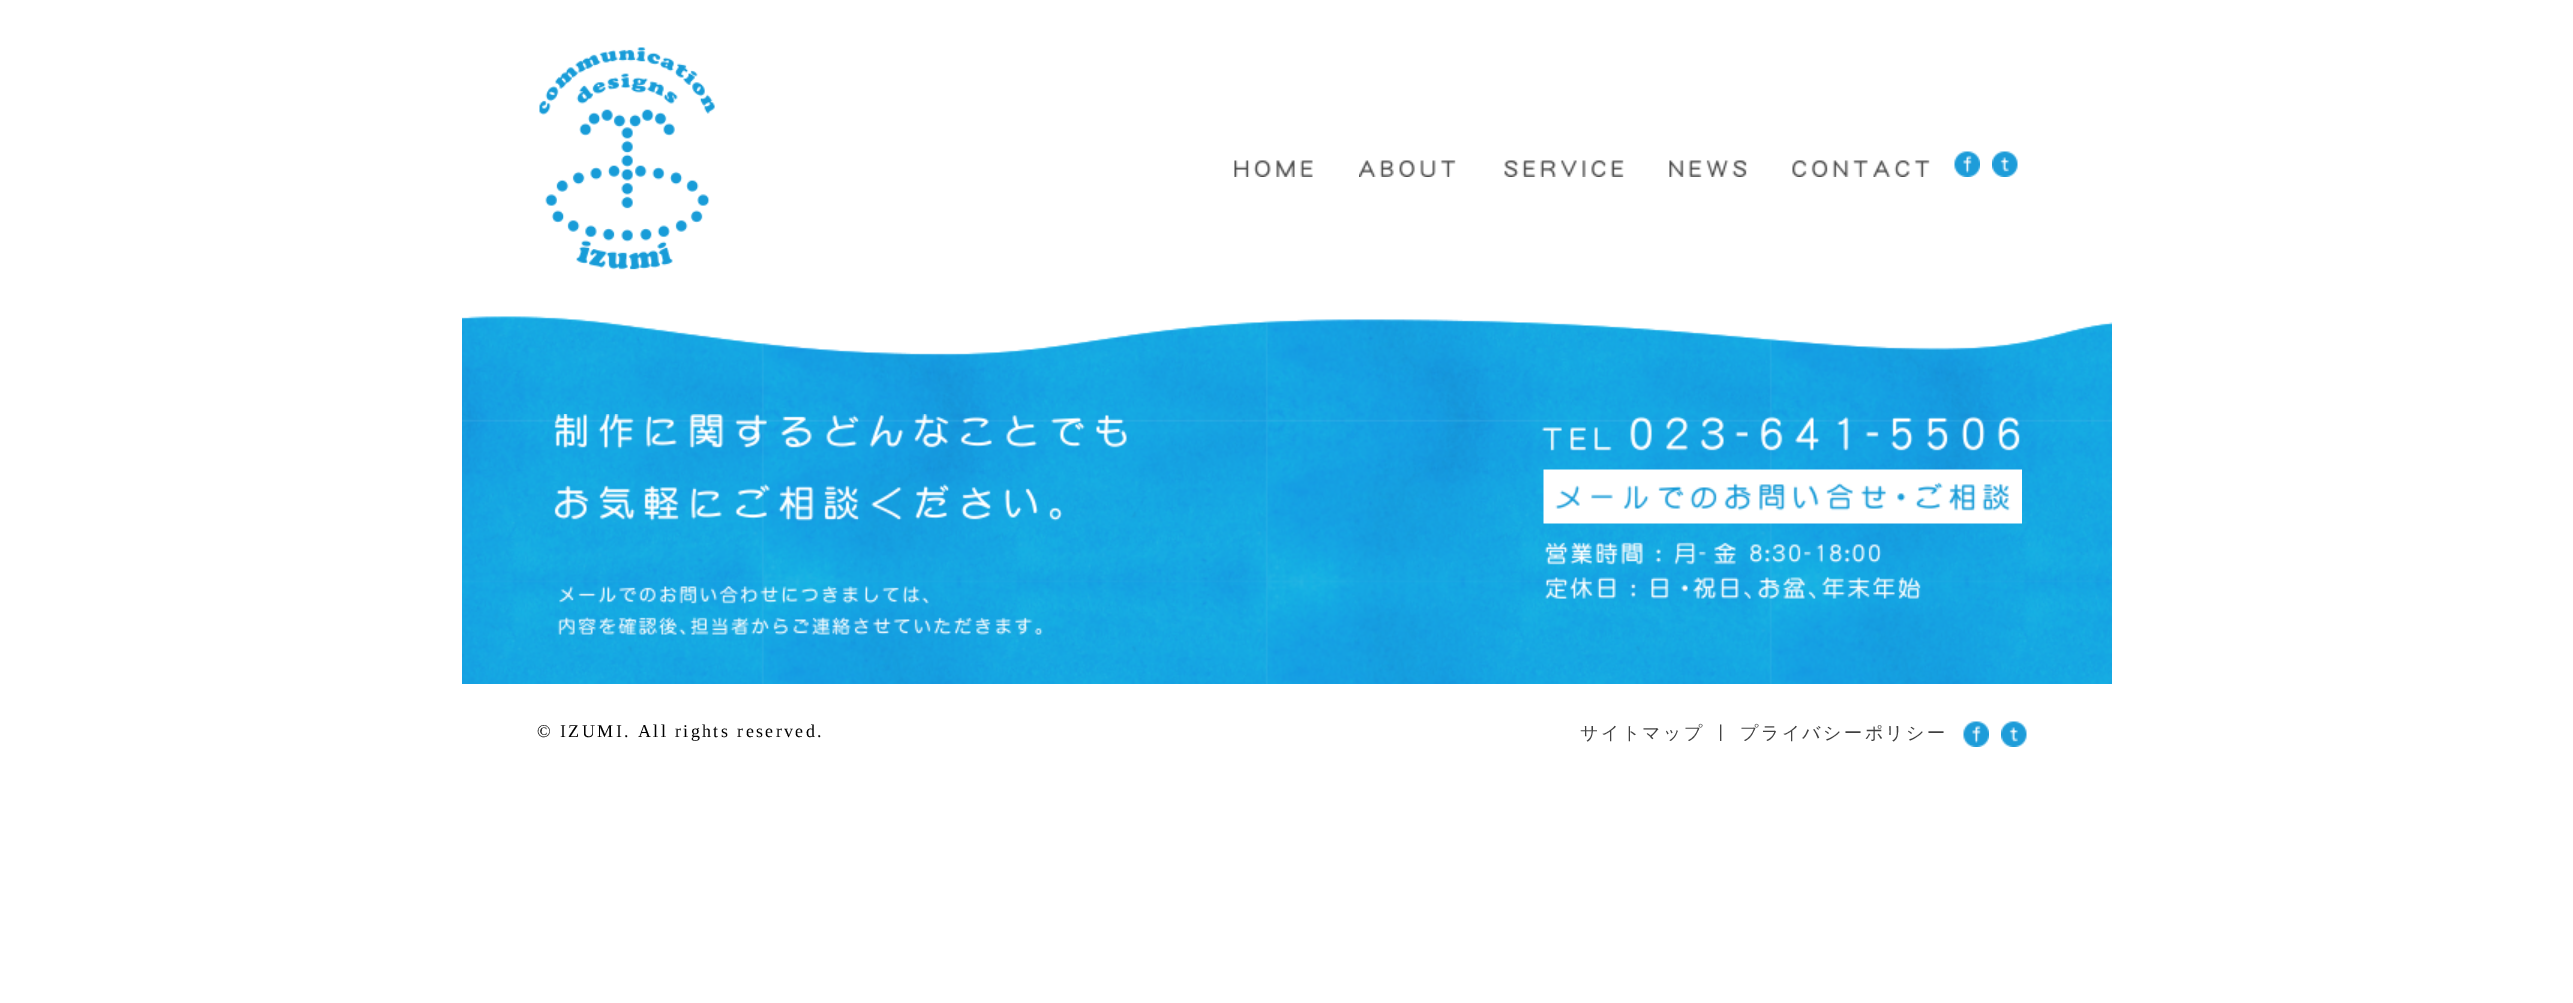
%!PS-Adobe-3.0
%%BoundingBox: 0 0 2573 1003
%%LanguageLevel: 3
%%Pages: 1
%%EndComments
%%BeginProlog
/setink { dup -16 bitshift 255 div exch dup -8 bitshift 255 and 255 div exch 255 and 255 div setrgbcolor } def
/usefont { [ exch dup neg 0 0 3 -1 roll 0 0 ] selectfont } def
/drawimage { 5 dict begin { /h /w /y /x /name } { exch def } forall
  gsave x y translate w h scale
  w h 8 [w 0 0 h 0 0] name (r) file false 3 colorimage grestore end } def
%%EndProlog
%%BeginSetup
<< /PageSize [2573 1003] >> setpagedevice
%%EndSetup
%%Page: 1 1
0 1003 translate 1 -1 scale
4 setmiterlimit
16#FFFFFF setink
0 0 2573 1003 rectfill
(img1.raw) 539 47 176 223 drawimage
(img2.raw) 1234 160 79 17 drawimage
(img3.raw) 1359 160 97 17 drawimage
(img4.raw) 1504 160 120 17 drawimage
(img5.raw) 1669 160 78 17 drawimage
(img6.raw) 1792 160 138 17 drawimage
(img7.raw) 1954 151 26 26 drawimage
(img8.raw) 1992 151 26 26 drawimage
(img9.raw) 462 316 1650 368 drawimage
(img10.raw) 554 414 1466 221 drawimage
(img11.raw) 1543 469 479 55 drawimage
/LiberationSerif-Regular 18 usefont
16#000000 setink
537 737 moveto 2.4 0 (© IZUMI. All rights reserved.) ashow
/WenQuanYiZenHei-Medium 18 usefont
16#404040 setink
1580 739 moveto 2.4 0 (サイトマップ) ashow
/LiberationSerif-Regular 18 usefont
16#000000 setink
1719 737 moveto 2.4 0 (|) ashow
/WenQuanYiZenHei-Medium 18 usefont
16#404040 setink
1740 739 moveto 2.4 0 (プライバシーポリシー) ashow
(img7.raw) 1963 721 26 26 drawimage
(img8.raw) 2001 721 26 26 drawimage
showpage
%%EOF
